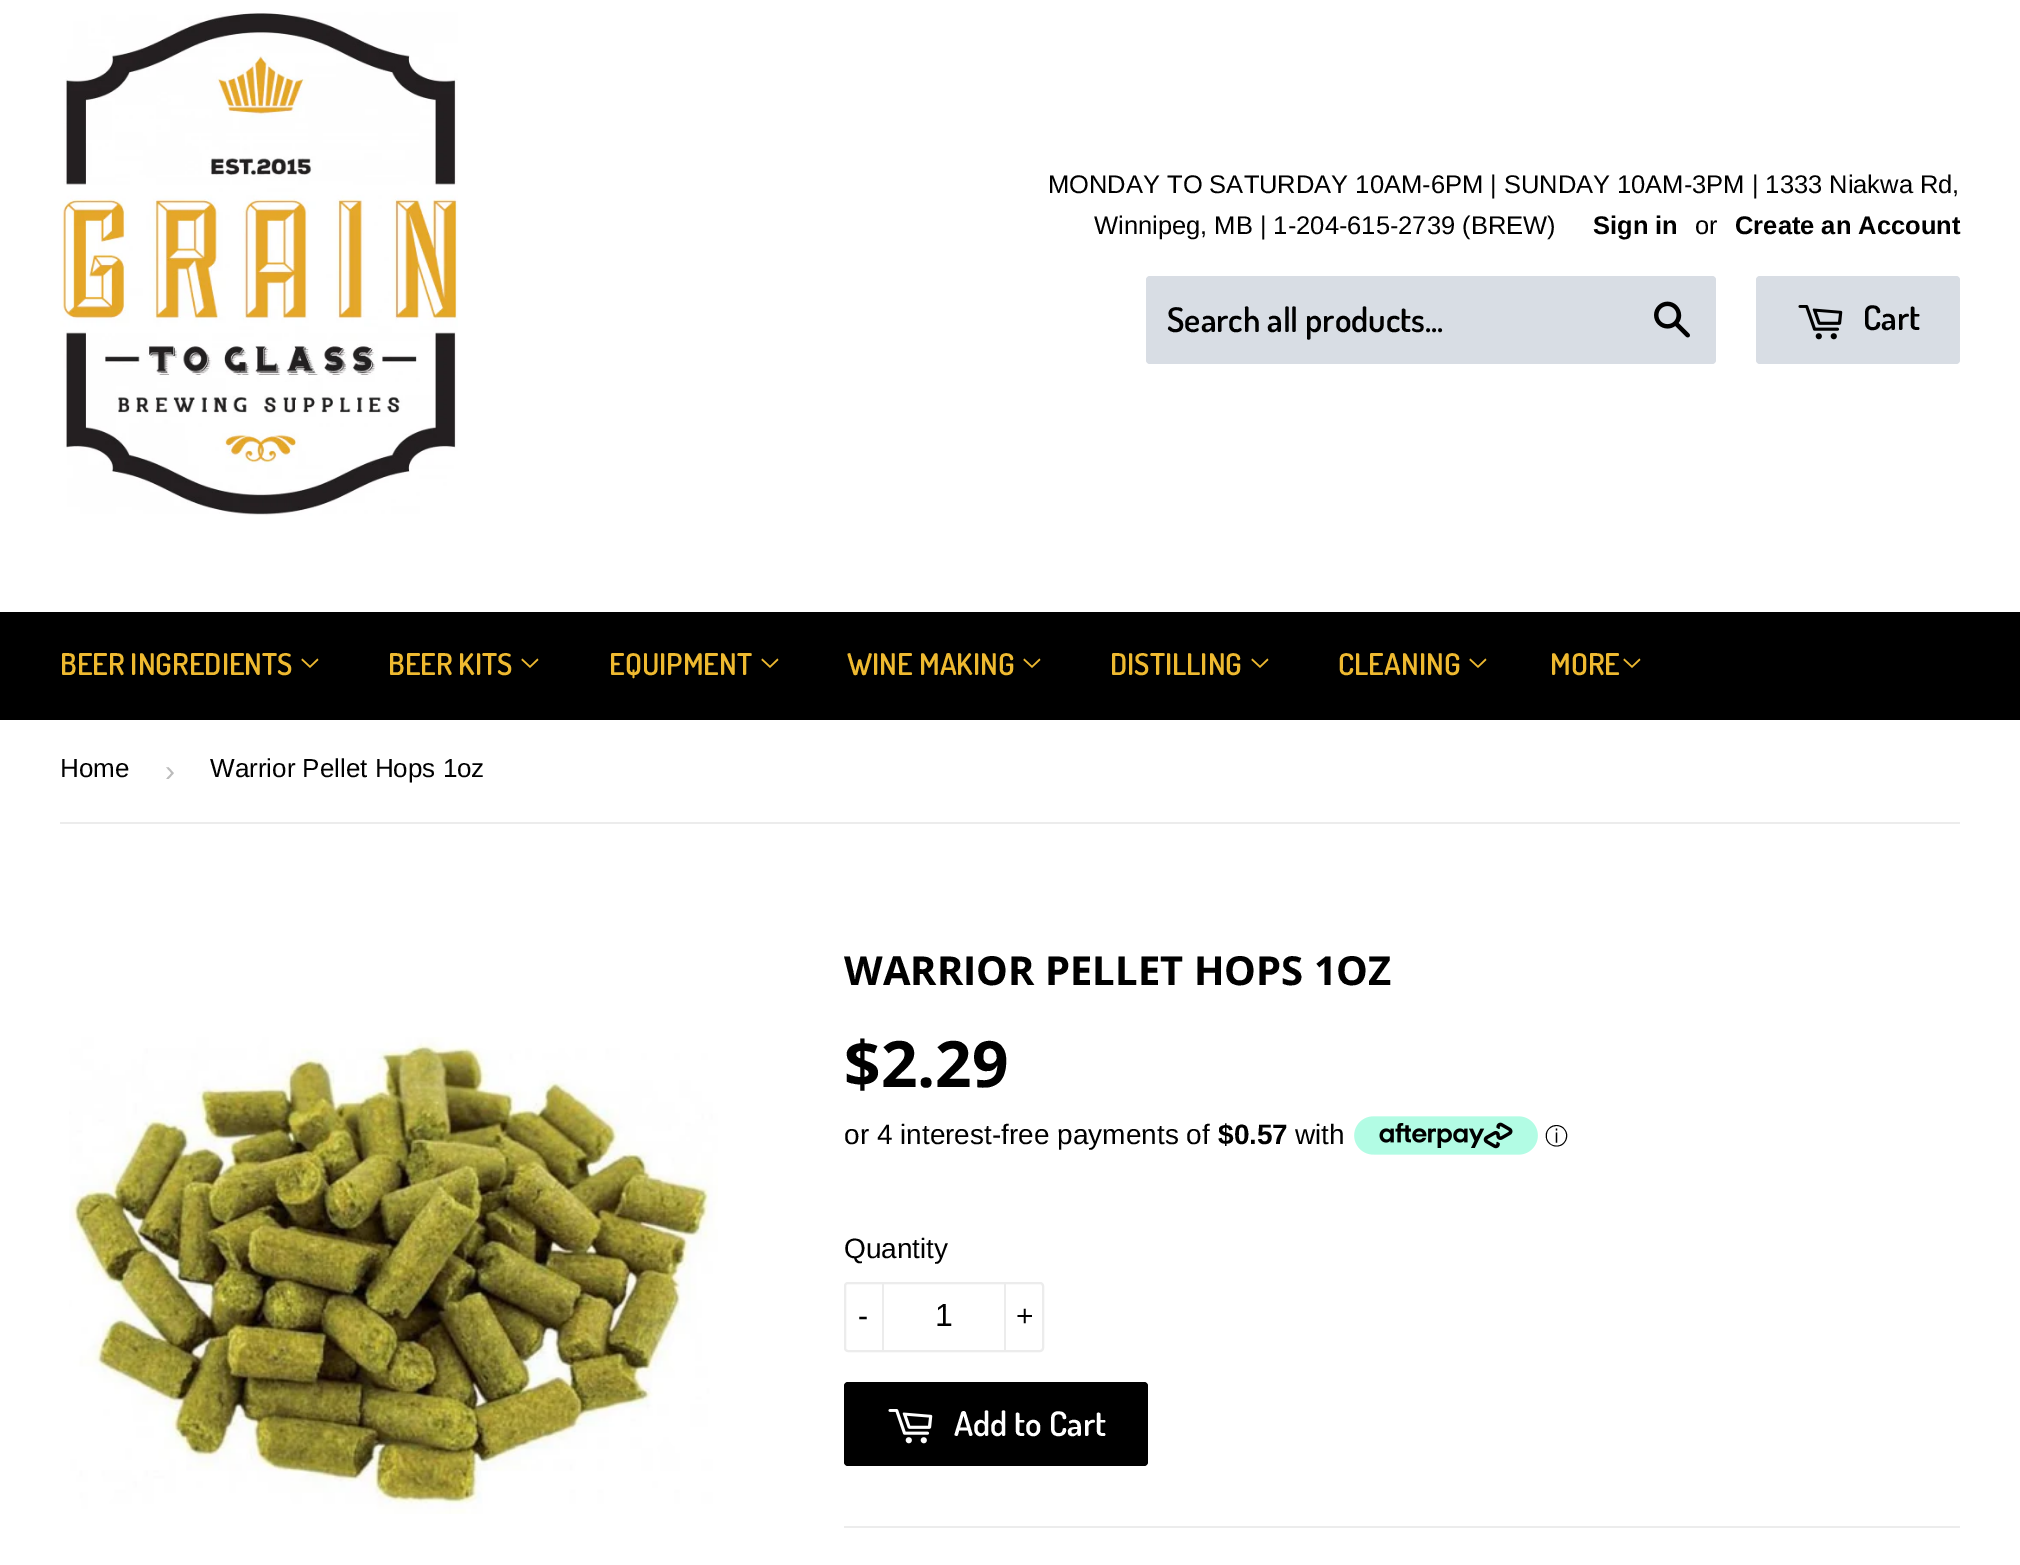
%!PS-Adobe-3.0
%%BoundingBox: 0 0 2020 1565
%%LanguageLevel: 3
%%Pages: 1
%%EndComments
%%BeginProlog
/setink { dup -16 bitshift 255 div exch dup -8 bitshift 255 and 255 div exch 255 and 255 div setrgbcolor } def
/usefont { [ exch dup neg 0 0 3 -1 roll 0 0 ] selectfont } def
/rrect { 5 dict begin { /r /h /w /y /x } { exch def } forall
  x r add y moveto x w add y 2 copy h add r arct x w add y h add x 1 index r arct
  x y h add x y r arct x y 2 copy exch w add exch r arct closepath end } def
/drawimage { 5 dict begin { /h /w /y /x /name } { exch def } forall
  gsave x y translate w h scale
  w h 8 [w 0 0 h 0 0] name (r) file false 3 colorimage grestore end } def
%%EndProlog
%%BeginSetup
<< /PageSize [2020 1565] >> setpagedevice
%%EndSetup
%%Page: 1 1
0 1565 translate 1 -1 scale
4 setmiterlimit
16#FFFFFF setink
0 0 2020 1565 rectfill
(img1.raw) 60 12 398 504 drawimage
/LiberationSans-Regular 25.5 usefont
16#000000 setink
1048 193 moveto (MONDAY TO SATURDAY 10AM-6PM | SUNDAY 10AM-3PM | 1333 Niakwa Rd,) show
1094 234 moveto (Winnipeg, MB | 1-204-615-2739 \(BREW\)) show
/LiberationSans-Bold 25.5 usefont
1593 234 moveto (Sign in) show
/LiberationSans-Regular 25.5 usefont
1695 234 moveto (or) show
/LiberationSans-Bold 25.5 usefont
1735 234 moveto (Create an Account) show
16#D8DDE4 setink
1146 276 570 88 4 rrect fill
/Dosis-SemiBold 34 usefont
16#000000 setink
1167 332 moveto (Search all products...) show
(img2.raw) 1654 301 36 37 drawimage
16#D8DDE4 setink
1756 276 204 88 4 rrect fill
(img3.raw) 1798 305 45 35 drawimage
16#000000 setink
1863 330 moveto (Cart) show
0 612 2020 108 rectfill
/Dosis-SemiBold 30 usefont
16#EEB930 setink
60 675 moveto (BEER INGREDIENTS) show
(img4.raw) 301 658 18 10 drawimage
388 675 moveto (BEER KITS) show
(img4.raw) 521 658 18 10 drawimage
609 675 moveto (EQUIPMENT) show
(img4.raw) 761 658 18 10 drawimage
847 675 moveto (WINE MAKING) show
(img4.raw) 1023 658 18 10 drawimage
1110 675 moveto (DISTILLING) show
(img4.raw) 1251 658 18 10 drawimage
1338 675 moveto (CLEANING) show
(img4.raw) 1469 658 18 10 drawimage
1550 675 moveto (MORE) show
(img4.raw) 1623 658 18 10 drawimage
16#ECECEC setink
60 822 1900 2 rectfill
/LiberationSans-Regular 26 usefont
16#000000 setink
60 777 moveto (Home) show
/LiberationSans-Regular 30 usefont
16#BBBBBB setink
165 781 moveto (›) show
/LiberationSans-Regular 26 usefont
16#000000 setink
210 777 moveto (Warrior Pellet Hops 1oz) show
(img5.raw) 69 1037 649 477 drawimage
/OpenSans-Bold 40 usefont
844 985 moveto (WARRIOR PELLET HOPS 1OZ) show
/OpenSans-Bold 64 usefont
844 1087 moveto ($2.29) show
/LiberationSans-Regular 28 usefont
844 1144 moveto (or 4 interest-free payments of) show
/LiberationSans-Bold 28 usefont
1218 1144 moveto ($0.57) show
/LiberationSans-Regular 28 usefont
1295 1144 moveto (with) show
(img6.raw) 1354 1116 184 39 drawimage
/WenQuanYiZenHei-Medium 23 usefont
1545 1144 moveto (ⓘ) show
/LiberationSans-Regular 28 usefont
844 1258 moveto (Quantity) show
16#ECECEC setink
2 setlinewidth
845 1283 198 68 3 rrect stroke
882 1282 2 70 rectfill
/LiberationSans-Regular 30 usefont
16#000000 setink
858 1326 moveto (-) show
/LiberationSans-Regular 32 usefont
935 1326 moveto (1) show
16#ECECEC setink
1004 1282 2 70 rectfill
/LiberationSans-Regular 30 usefont
16#000000 setink
1016 1326 moveto (+) show
844 1382 304 84 4 rrect fill
(img7.raw) 888 1409 45 35 drawimage
/Dosis-SemiBold 34 usefont
16#FFFFFF setink
954 1436 moveto (Add to Cart) show
16#ECECEC setink
844 1526 1116 2 rectfill
showpage
%%EOF
